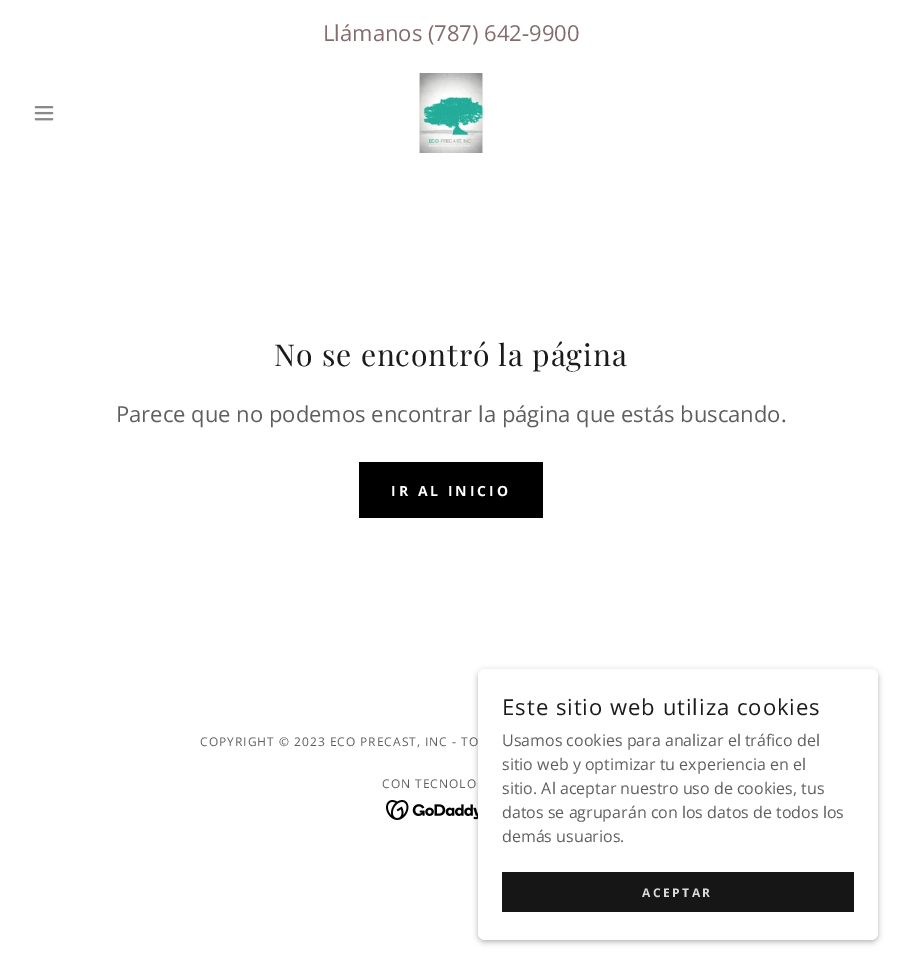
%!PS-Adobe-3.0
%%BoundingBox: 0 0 902 964
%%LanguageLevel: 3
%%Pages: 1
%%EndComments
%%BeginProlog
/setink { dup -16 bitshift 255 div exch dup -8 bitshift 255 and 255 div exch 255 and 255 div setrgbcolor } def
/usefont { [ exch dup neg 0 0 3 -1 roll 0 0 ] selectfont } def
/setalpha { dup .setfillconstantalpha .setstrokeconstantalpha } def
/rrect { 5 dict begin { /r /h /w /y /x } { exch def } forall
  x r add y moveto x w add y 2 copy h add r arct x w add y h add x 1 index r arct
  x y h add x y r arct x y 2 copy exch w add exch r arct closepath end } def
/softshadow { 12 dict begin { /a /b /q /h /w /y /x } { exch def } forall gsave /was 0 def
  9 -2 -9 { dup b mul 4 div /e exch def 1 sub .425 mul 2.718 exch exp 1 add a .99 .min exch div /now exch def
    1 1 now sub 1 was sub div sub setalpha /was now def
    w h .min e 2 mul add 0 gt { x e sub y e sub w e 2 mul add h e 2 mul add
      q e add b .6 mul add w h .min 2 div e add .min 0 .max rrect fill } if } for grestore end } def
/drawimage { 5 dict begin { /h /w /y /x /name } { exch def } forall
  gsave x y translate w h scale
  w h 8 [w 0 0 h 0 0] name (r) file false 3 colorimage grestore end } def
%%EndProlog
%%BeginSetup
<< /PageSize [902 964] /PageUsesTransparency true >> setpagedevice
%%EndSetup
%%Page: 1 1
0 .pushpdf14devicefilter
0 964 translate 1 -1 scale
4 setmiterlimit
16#FFFFFF setink
0 0 902 964 rectfill
/OpenSans-Regular 22 usefont
16#826C6C setink
323 41 moveto (Llámanos \(787\) 642-9900) show
(img1.raw) 34 106 20 15 drawimage
(img2.raw) 419 73 64 80 drawimage
/PlayfairDisplay-Regular 30 usefont
16#1B1B1B setink
274 366 moveto 0.9 0 (No se encontró la página) ashow
/OpenSans-Regular 22 usefont
16#5E5E5E setink
116 422 moveto (Parece que no podemos encontrar la página que estás buscando.) show
16#000000 setink
359 462 184 56 rectfill
/OpenSans-Bold 14 usefont
16#FFFFFF setink
391 496 moveto 3 0 (IR AL INICIO) ashow
/OpenSans-Regular 12 usefont
16#5E5E5E setink
200 746 moveto 1 0 (COPYRIGHT © 2023 ECO PRECAST, INC - TO) ashow
382 788 moveto 1 0 (CON TECNOLO) ashow
(img3.raw) 386 800 92 20 drawimage
16#000000 setink
478 671 400 271 7 3 0.3 softshadow
16#FFFFFF setink
478 669 400 271 7 rrect fill
/OpenSans-Regular 22 usefont
16#1B1B1B setink
502 715 moveto 1 0 (Este sitio web utiliza cookies) ashow
/OpenSans-Regular 16 usefont
16#5E5E5E setink
[
    [(Usamos cookies para analizar el tráfico del) 502 746]
    [(sitio web y optimizar tu experiencia en el) 502 770]
    [(sitio. Al aceptar nuestro uso de cookies, tus) 502 794]
    [(datos se agruparán con los datos de todos los) 502 818]
    [(demás usuarios.) 502 842]
] { aload pop moveto show } forall
16#161616 setink
502 872 352 40 rectfill
/OpenSans-Bold 12 usefont
16#DBDBDB setink
642 897 moveto 2.5 0 (ACEPTAR) ashow
.poppdf14devicefilter showpage
%%EOF
